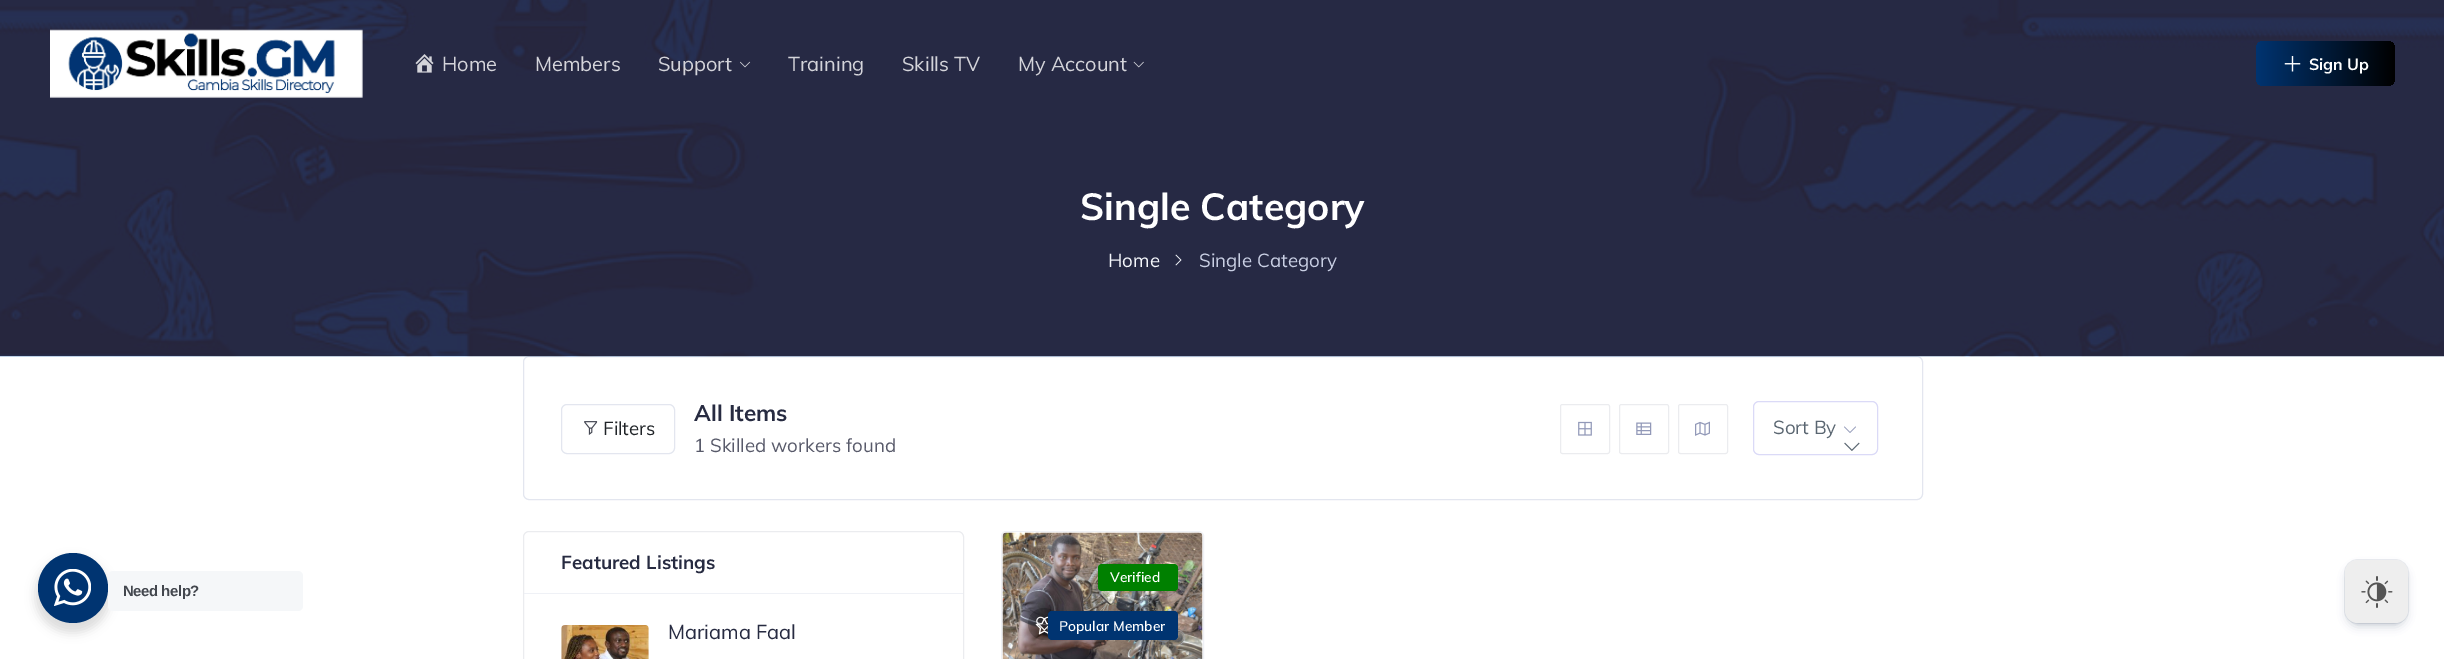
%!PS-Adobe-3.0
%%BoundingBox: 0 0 2444 659
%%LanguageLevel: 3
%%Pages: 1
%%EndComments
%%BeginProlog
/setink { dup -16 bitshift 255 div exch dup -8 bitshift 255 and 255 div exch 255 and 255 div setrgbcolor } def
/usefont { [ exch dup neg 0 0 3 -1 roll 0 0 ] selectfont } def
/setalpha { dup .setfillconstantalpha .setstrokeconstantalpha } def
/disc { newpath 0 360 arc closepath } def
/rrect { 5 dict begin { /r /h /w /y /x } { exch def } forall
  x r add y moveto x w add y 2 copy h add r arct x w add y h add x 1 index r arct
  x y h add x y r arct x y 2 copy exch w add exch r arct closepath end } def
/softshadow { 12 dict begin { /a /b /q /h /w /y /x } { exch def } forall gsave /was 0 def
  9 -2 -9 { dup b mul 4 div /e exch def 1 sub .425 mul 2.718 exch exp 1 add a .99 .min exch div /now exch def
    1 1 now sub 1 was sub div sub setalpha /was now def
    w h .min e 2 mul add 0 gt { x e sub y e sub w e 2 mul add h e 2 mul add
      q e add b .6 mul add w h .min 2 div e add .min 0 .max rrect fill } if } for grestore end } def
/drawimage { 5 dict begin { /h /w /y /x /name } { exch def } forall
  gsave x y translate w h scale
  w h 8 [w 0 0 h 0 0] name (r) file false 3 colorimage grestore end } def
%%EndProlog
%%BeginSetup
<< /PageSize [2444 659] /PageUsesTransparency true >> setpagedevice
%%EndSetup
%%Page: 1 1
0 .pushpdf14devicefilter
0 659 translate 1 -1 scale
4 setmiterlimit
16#FFFFFF setink
0 0 2444 659 rectfill
16#E3E6EF setink
523.5 356.5 1399 143 5.5 rrect stroke
(img6.raw) 0 0 2444 357 drawimage
(img1.raw) 50 29 313 69 drawimage
(img2.raw) 415 54 19 19 drawimage
/Muli-Regular 20 usefont
16#D4D4DA setink
[
    [(Home) 442 71]
    [(Members) 535 71]
    [(Support) 658 71]
] { aload pop moveto show } forall
(img3.raw) 740 61 11 7 drawimage
[
    [(Training) 788 71]
    [(Skills TV) 902 71]
    [(My Account) 1018 71]
] { aload pop moveto show } forall
(img4.raw) 1133 61 11 7 drawimage
gsave 2256 41 139 45 8 rrect clip newpath
<< /ShadingType 2 /ColorSpace /DeviceRGB /Coords [2256 64 2395 64] /Extend [true true] /Function << /FunctionType 2 /Domain [0 1] /C0 [0 0.204 0.443] /C1 [0 0 0] /N 1 >> >> shfill grestore
(img5.raw) 2284 56 17 16 drawimage
/Muli-Bold 16 usefont
16#FFFFFF setink
2309 70 moveto (Sign Up) show
/Muli-Bold 37.5 usefont
1080 220 moveto (Single Category) show
/Muli-Regular 18.75 usefont
16#F5F7FC setink
1108 267 moveto (Home) show
(img7.raw) 1175 254 7 12 drawimage
16#C9CFE4 setink
1199 267 moveto (Single Category) show
16#000000 setink
35 558 75 75 37.5 5 0.14 softshadow
16#003471 setink
73 588 35 disc fill
(img8.raw) 54 569 37 37 drawimage
16#F5F7F9 setink
108 571 195 40 5 rrect fill
/LiberationSans-Bold 15 usefont
16#43474E setink
123 596 moveto -0.5 0 (Need help?) ashow
16#E3E6EF setink
561.5 404.5 113 49 5.5 rrect stroke
(img9.raw) 584 421 14 14 drawimage
/Muli-Regular 18.75 usefont
16#202428 setink
603 435 moveto (Filters) show
/Muli-Bold 22.5 usefont
16#272B41 setink
694 421 moveto (All Items) show
/Muli-Regular 18.75 usefont
16#585A6A setink
694 452 moveto (1 Skilled workers found) show
16#EBECEF setink
1560.5 404.5 49 49 2 rrect stroke
(img10.raw) 1578 421 14 15 drawimage
1619.5 404.5 49 49 2 rrect stroke
(img11.raw) 1636 422 16 13 drawimage
1678.5 404.5 49 49 2 rrect stroke
(img12.raw) 1695 421 15 15 drawimage
16#DBDAF7 setink
1753.5 401.5 124 53 5.5 rrect stroke
16#5A6671 setink
1773 434 moveto (Sort By) show
(img13.raw) 1844 426 12 7 drawimage
(img14.raw) 1844 442 16 9 drawimage
16#EBECEF setink
523.5 531.5 440 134 5.5 rrect stroke
16#EFF1F6 setink
524 593 439 1 rectfill
/Muli-Bold 18.75 usefont
16#272B41 setink
561 569 moveto (Featured Listings) show
(img15.raw) 561 625 88 34 drawimage
/Muli-Regular 20 usefont
668 639 moveto (Mariama Faal) show
16#EFF1F6 setink
1001.5 531.5 202 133 4.5 rrect stroke
(img16.raw) 1002 532 201 127 drawimage
16#008000 setink
1098 564 80 27 4 rrect fill
/Muli-SemiBold 13.75 usefont
16#FFFFFF setink
1110 582 moveto (Verified) show
0.2 setalpha
16#000000 setink
1044 624 16 disc fill
1 setalpha
(img17.raw) 1036 616 12 15 drawimage
(img18.raw) 1035 617 13 18 drawimage
16#003471 setink
1048 611 130 29 4 rrect fill
16#FFFFFF setink
1059 631 moveto (Popular Member) show
16#EBEDF0 setink
2344.5 559.5 64 64 13.5 rrect stroke
16#091E42 setink
2348 568 57 57 10 5 0.25 softshadow
16#EEEEEE setink
2345 560 63 63 13 rrect fill
(img19.raw) 2361 576 32 32 drawimage
.poppdf14devicefilter showpage
%%EOF
